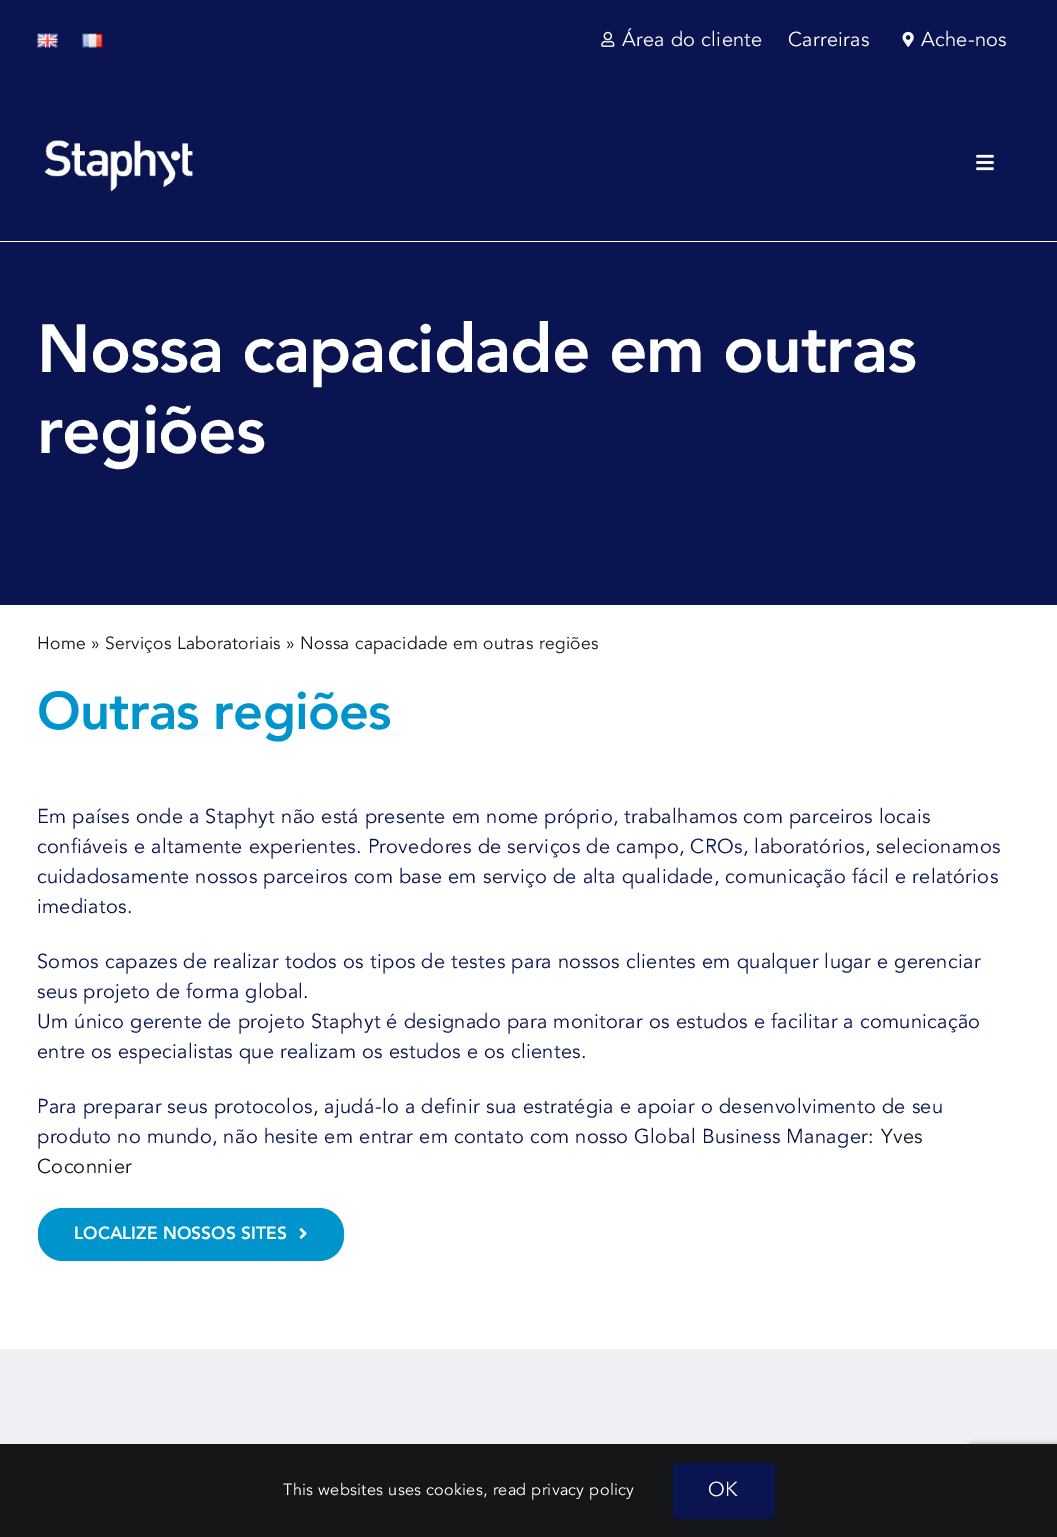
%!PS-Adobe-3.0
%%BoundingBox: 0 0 1057 1537
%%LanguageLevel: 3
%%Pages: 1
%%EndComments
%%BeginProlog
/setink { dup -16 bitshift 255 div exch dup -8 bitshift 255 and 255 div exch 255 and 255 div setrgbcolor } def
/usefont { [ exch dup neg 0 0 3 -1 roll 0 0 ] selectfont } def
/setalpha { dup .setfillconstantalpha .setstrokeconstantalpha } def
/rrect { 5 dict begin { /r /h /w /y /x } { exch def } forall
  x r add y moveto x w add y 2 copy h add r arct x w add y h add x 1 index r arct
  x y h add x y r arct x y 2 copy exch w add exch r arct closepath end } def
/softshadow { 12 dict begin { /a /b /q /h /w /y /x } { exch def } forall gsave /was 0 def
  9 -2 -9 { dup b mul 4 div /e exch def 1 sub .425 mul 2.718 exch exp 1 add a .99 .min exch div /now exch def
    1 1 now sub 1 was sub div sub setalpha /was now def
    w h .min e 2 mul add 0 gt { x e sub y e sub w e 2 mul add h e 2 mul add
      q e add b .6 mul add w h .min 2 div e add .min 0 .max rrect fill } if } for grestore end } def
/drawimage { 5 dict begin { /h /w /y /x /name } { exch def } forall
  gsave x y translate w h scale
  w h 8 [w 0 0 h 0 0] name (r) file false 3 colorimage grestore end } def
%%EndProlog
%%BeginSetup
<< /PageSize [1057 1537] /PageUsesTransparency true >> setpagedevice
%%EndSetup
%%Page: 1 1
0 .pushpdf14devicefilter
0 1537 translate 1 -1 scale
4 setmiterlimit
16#FFFFFF setink
0 0 1057 1537 rectfill
16#0A1450 setink
0 0 1057 605 rectfill
(img1.raw) 37 33 21 15 drawimage
(img2.raw) 82 33 21 15 drawimage
(img3.raw) 601 31 14 16 drawimage
/Avenir-Regular 20 usefont
16#FFFFFF setink
622 46 moveto 0.3 0 (Área do cliente) ashow
788 46 moveto 0.3 0 (Carreiras) ashow
(img4.raw) 902 31 12 16 drawimage
921 46 moveto 0.3 0 (Ache-nos) ashow
0 241 1057 1 rectfill
(img5.raw) 44 140 149 52 drawimage
(img6.raw) 976 154 18 17 drawimage
/Avenir-Black 67.5 usefont
37 372 moveto -1 0 (Nossa capacidade em outras) ashow
37 453 moveto -1 0 (regiões) ashow
/Avenir-Regular 17.5 usefont
16#141617 setink
37 649 moveto 0.3 0 (Home » Serviços Laboratoriais » Nossa capacidade em outras regiões) ashow
/Avenir-Black 52.5 usefont
16#0094CD setink
37 729 moveto -0.75 0 (Outras regiões) ashow
/Avenir-Regular 20 usefont
16#0A1450 setink
37 823 moveto 0.3 0 (Em países onde a Staphyt não está presente em nome próprio, trabalhamos com parceiros locais) ashow
37 853 moveto 0.3 0 (confiáveis e altamente experientes. Provedores de serviços de campo, CROs, laboratórios, selecionamos) ashow
37 883 moveto 0.3 0 (cuidadosamente nossos parceiros com base em serviço de alta qualidade, comunicação fácil e relatórios) ashow
37 913 moveto 0.3 0 (imediatos.) ashow
37 968 moveto 0.3 0 (Somos capazes de realizar todos os tipos de testes para nossos clientes em qualquer lugar e gerenciar) ashow
37 998 moveto 0.3 0 (seus projeto de forma global.) ashow
37 1028 moveto 0.3 0 (Um único gerente de projeto Staphyt é designado para monitorar os estudos e facilitar a comunicação) ashow
37 1058 moveto 0.3 0 (entre os especialistas que realizam os estudos e os clientes.) ashow
37 1113 moveto 0.3 0 (Para preparar seus protocolos, ajudá-lo a definir sua estratégia e apoiar o desenvolvimento de seu) ashow
37 1143 moveto 0.3 0 (produto no mundo, não hesite em entrar em contato com nosso Global Business Manager:) ashow
16#141617 setink
881 1143 moveto 0.3 0 (Yves) ashow
37 1173 moveto 0.3 0 (Coconnier) ashow
16#0094CD setink
38 1208 306 53 25 rrect fill
/Avenir-Black 17.5 usefont
16#FFFFFF setink
74 1239 moveto (LOCALIZE NOSSOS SITES) show
(img7.raw) 299 1228 8 11 drawimage
16#EFF0F4 setink
0 1349 1057 95 rectfill
16#808080 setink
970 1445 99 75 2.5 3 1 softshadow
16#141617 setink
0 1444 1057 93 rectfill
/Avenir-Regular 16.25 usefont
16#FFFFFF setink
283 1495 moveto 0.3 0 (This websites uses cookies, read privacy policy) ashow
16#0A1450 setink
673 1463 102 56 5 rrect fill
/Avenir-Regular 20 usefont
16#FFFFFF setink
708 1496 moveto 0.3 0 (OK) ashow
.poppdf14devicefilter showpage
%%EOF
